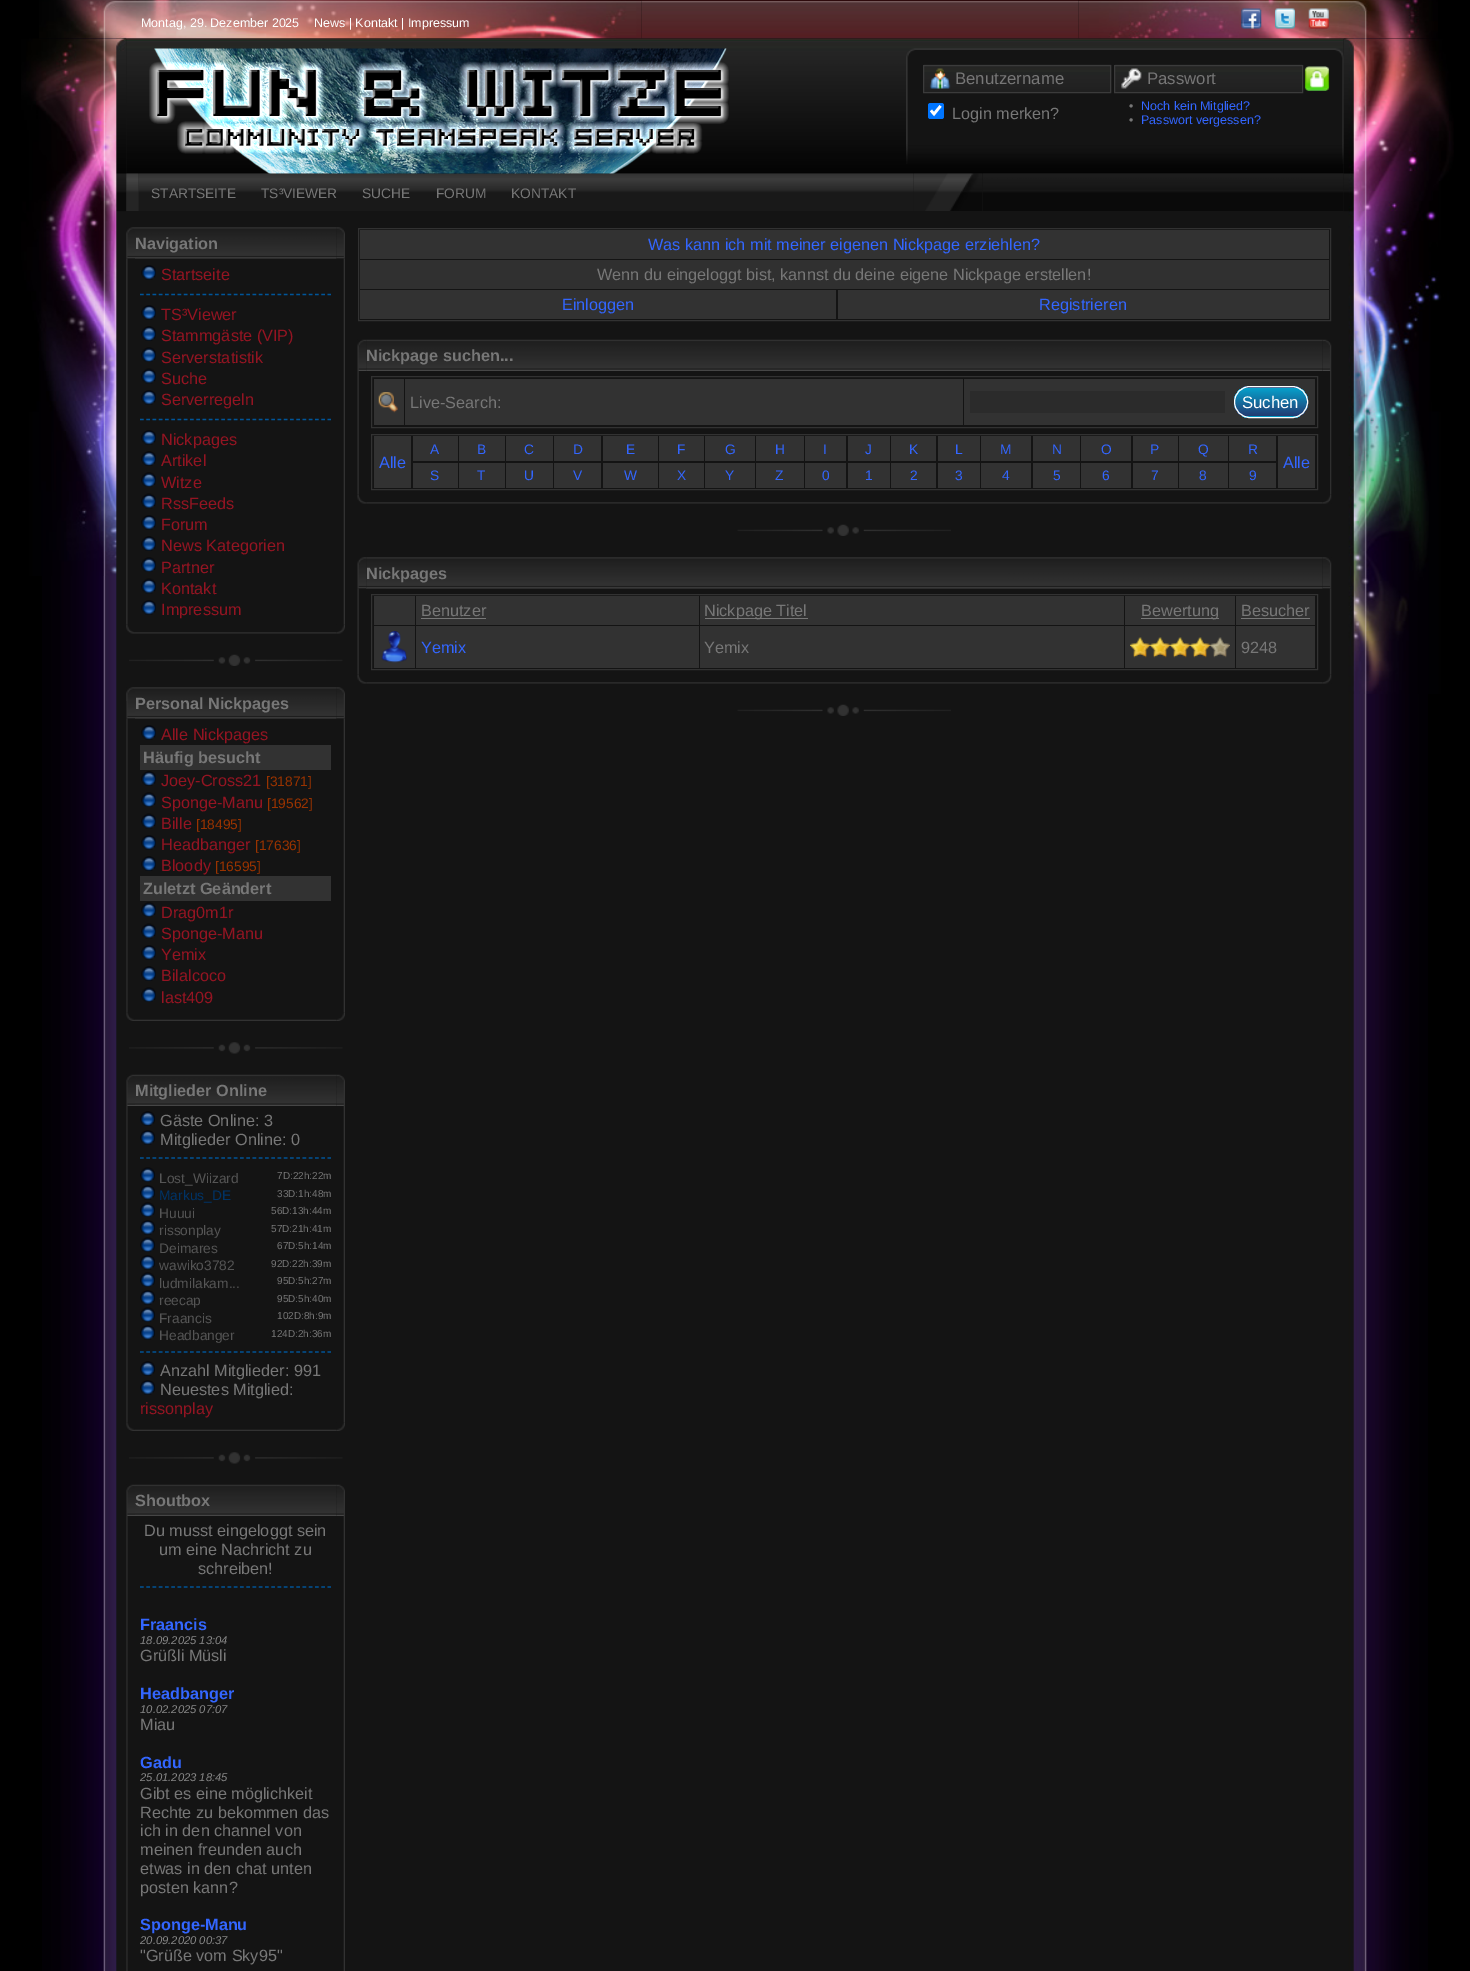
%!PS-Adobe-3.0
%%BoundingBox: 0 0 1470 1971
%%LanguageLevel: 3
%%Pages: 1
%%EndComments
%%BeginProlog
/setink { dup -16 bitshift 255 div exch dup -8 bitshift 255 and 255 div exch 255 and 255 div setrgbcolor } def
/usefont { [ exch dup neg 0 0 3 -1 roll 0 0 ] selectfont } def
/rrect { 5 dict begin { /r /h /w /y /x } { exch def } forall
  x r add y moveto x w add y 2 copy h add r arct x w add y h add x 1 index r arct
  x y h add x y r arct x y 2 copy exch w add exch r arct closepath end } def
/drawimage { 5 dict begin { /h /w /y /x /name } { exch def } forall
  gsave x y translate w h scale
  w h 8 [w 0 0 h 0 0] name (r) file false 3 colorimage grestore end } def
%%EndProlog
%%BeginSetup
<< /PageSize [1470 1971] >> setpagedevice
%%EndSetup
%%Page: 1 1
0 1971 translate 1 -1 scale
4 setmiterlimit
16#000000 setink
0 0 1470 1971 rectfill
(img1.raw) 39 0 603 39 drawimage
/LiberationSans-Regular 12.5 usefont
16#FFFFFF setink
141 27 moveto (Montag, 29. Dezember 2025) show
314 27 moveto (News | Kontakt | Impressum) show
(img2.raw) 641 0 438 39 drawimage
(img3.raw) 1078 0 360 39 drawimage
(img4.raw) 1241 8 21 21 drawimage
(img5.raw) 1275 8 20 21 drawimage
(img6.raw) 1308 8 21 21 drawimage
(img7.raw) 42 38 85 663 drawimage
(img8.raw) 21 38 106 538 drawimage
16#141414 setink
126 39 1218 1932 rectfill
(img9.raw) 126 38 1218 136 drawimage
(img16.raw) 139 173 775 38 drawimage
(img10.raw) 149 48 580 126 drawimage
(img11.raw) 906 48 438 116 drawimage
(img12.raw) 923 64 189 29 drawimage
16#3B3B3B setink
923.5 65.5 187 27 rectstroke
/LiberationSans-Regular 16.75 usefont
16#777777 setink
955 84 moveto (Benutzername) show
(img13.raw) 1115 64 188 28 drawimage
16#3B3B3B setink
1114.5 65.5 188 27 rectstroke
16#777777 setink
1147 84 moveto (Passwort) show
(img14.raw) 1304 66 26 25 drawimage
16#0075FF setink
928 103 16 16 2.5 rrect fill
16#FFFFFF setink
2.6 setlinewidth
931 110.5 moveto 934 114 lineto 940.5 106 lineto stroke
/LiberationSans-Regular 16.25 usefont
16#777777 setink
952 119 moveto (Login merken?) show
/LiberationSans-Regular 12.5 usefont
1129 110 moveto (•) show
16#3366FF setink
1141 110 moveto (Noch kein Mitglied?) show
16#777777 setink
1129 124 moveto (•) show
16#3366FF setink
1141 124 moveto (Passwort vergessen?) show
(img15.raw) 126 173 13 38 drawimage
/LiberationSans-Regular 13.75 usefont
16#777777 setink
[
    [(STARTSEITE) 151 198]
    [(TS³VIEWER) 261 198]
    [(SUCHE) 362 198]
    [(FORUM) 436 198]
    [(KONTAKT) 511 198]
] { aload pop moveto show } forall
(img17.raw) 914 173 69 38 drawimage
(img18.raw) 983 173 361 38 drawimage
(img19.raw) 126 227 9 32 drawimage
(img20.raw) 135 227 202 32 drawimage
/LiberationSans-Bold 16.25 usefont
135 249 moveto (Navigation) show
(img21.raw) 336 227 9 32 drawimage
(img22.raw) 126 258 9 367 drawimage
(img23.raw) 141 265 15 15 drawimage
/LiberationSans-Regular 16.25 usefont
16#941422 setink
161 280 moveto (Startseite) show
16#005599 setink
1.2 setlinewidth
[3.75 2.5] 0 setdash
140 294.5 moveto 331 294.5 lineto stroke
(img23.raw) 141 305 15 15 drawimage
16#941422 setink
161 320 moveto (TS³Viewer) show
(img24.raw) 141 326 15 15 drawimage
161 341 moveto (Stammgäste \(VIP\)) show
(img25.raw) 141 347 15 15 drawimage
161 363 moveto (Serverstatistik) show
(img26.raw) 141 368 15 16 drawimage
161 384 moveto (Suche) show
(img23.raw) 141 390 15 15 drawimage
161 405 moveto (Serverregeln) show
16#005599 setink
140 419.5 moveto 331 419.5 lineto stroke
(img23.raw) 141 430 15 15 drawimage
16#941422 setink
161 445 moveto (Nickpages) show
(img24.raw) 141 451 15 15 drawimage
161 466 moveto (Artikel) show
(img25.raw) 141 472 15 15 drawimage
161 488 moveto (Witze) show
(img26.raw) 141 493 15 16 drawimage
161 509 moveto (RssFeeds) show
(img23.raw) 141 515 15 15 drawimage
161 530 moveto (Forum) show
(img27.raw) 141 536 15 15 drawimage
161 551 moveto (News Kategorien) show
(img25.raw) 141 557 15 15 drawimage
161 573 moveto (Partner) show
(img26.raw) 141 578 15 16 drawimage
161 594 moveto (Kontakt) show
(img23.raw) 141 600 15 15 drawimage
161 615 moveto (Impressum) show
(img28.raw) 336 258 9 367 drawimage
(img29.raw) 126 625 9 9 drawimage
(img30.raw) 135 632 202 2 drawimage
(img31.raw) 336 625 9 9 drawimage
(img32.raw) 129 654 214 12 drawimage
(img19.raw) 126 687 9 32 drawimage
(img33.raw) 135 687 202 32 drawimage
/LiberationSans-Bold 16.25 usefont
16#777777 setink
135 709 moveto (Personal Nickpages) show
(img21.raw) 336 687 9 32 drawimage
(img34.raw) 126 718 9 295 drawimage
(img35.raw) 141 725 15 15 drawimage
/LiberationSans-Regular 16.25 usefont
16#941422 setink
161 740 moveto (Alle Nickpages) show
16#323232 setink
140 745 191 25 rectfill
/LiberationSans-Bold 16.25 usefont
16#777777 setink
143 763 moveto (Häufig besucht) show
(img24.raw) 141 771 15 15 drawimage
/LiberationSans-Regular 16.25 usefont
16#941422 setink
161 786 moveto (Joey-Cross21) show
/LiberationSans-Regular 13.75 usefont
16#993300 setink
266 786 moveto ([31871]) show
(img25.raw) 141 792 15 15 drawimage
/LiberationSans-Regular 16.25 usefont
16#941422 setink
161 808 moveto (Sponge-Manu) show
/LiberationSans-Regular 13.75 usefont
16#993300 setink
267 808 moveto ([19562]) show
(img26.raw) 141 813 15 16 drawimage
/LiberationSans-Regular 16.25 usefont
16#941422 setink
161 829 moveto (Bille) show
/LiberationSans-Regular 13.75 usefont
16#993300 setink
196 829 moveto ([18495]) show
(img23.raw) 141 835 15 15 drawimage
/LiberationSans-Regular 16.25 usefont
16#941422 setink
161 850 moveto (Headbanger) show
/LiberationSans-Regular 13.75 usefont
16#993300 setink
255 850 moveto ([17636]) show
(img24.raw) 141 856 15 15 drawimage
/LiberationSans-Regular 16.25 usefont
16#941422 setink
161 871 moveto (Bloody) show
/LiberationSans-Regular 13.75 usefont
16#993300 setink
215 871 moveto ([16595]) show
16#323232 setink
140 876 191 25 rectfill
/LiberationSans-Bold 16.25 usefont
16#777777 setink
143 894 moveto (Zuletzt Geändert) show
(img25.raw) 141 902 15 15 drawimage
/LiberationSans-Regular 16.25 usefont
16#941422 setink
161 918 moveto (Drag0m1r) show
(img26.raw) 141 923 15 16 drawimage
161 939 moveto (Sponge-Manu) show
(img23.raw) 141 945 15 15 drawimage
161 960 moveto (Yemix) show
(img24.raw) 141 966 15 15 drawimage
161 981 moveto (Bilalcoco) show
(img25.raw) 141 987 15 15 drawimage
161 1003 moveto (last409) show
(img36.raw) 336 718 9 295 drawimage
(img37.raw) 126 1012 9 9 drawimage
(img38.raw) 135 1019 202 2 drawimage
(img39.raw) 336 1012 9 9 drawimage
(img40.raw) 129 1042 214 12 drawimage
(img41.raw) 126 1074 9 32 drawimage
(img42.raw) 135 1074 202 32 drawimage
/LiberationSans-Bold 16.25 usefont
16#777777 setink
135 1096 moveto (Mitglieder Online) show
(img43.raw) 336 1074 9 32 drawimage
(img44.raw) 126 1106 2 317 drawimage
(img45.raw) 140 1111 15 15 drawimage
/LiberationSans-Regular 16.25 usefont
160 1126 moveto (Gäste Online: 3) show
(img46.raw) 140 1130 15 15 drawimage
160 1145 moveto (Mitglieder Online: 0) show
16#005599 setink
140 1158 moveto 331 1158 lineto stroke
(img47.raw) 140 1167 15 15 drawimage
/LiberationSans-Regular 13.75 usefont
16#555555 setink
159 1183 moveto (Lost_Wiizard) show
/LiberationSans-Regular 10 usefont
16#777777 setink
277 1179 moveto (7D:22h:22m) show
(img46.raw) 140 1185 15 15 drawimage
/LiberationSans-Regular 13.75 usefont
16#003366 setink
159 1200 moveto (Markus_DE) show
/LiberationSans-Regular 10 usefont
16#777777 setink
277 1197 moveto (33D:1h:48m) show
(img47.raw) 140 1202 15 15 drawimage
/LiberationSans-Regular 13.75 usefont
16#555555 setink
159 1218 moveto (Huuui) show
/LiberationSans-Regular 10 usefont
16#777777 setink
271 1214 moveto (56D:13h:44m) show
(img46.raw) 140 1220 15 15 drawimage
/LiberationSans-Regular 13.75 usefont
16#555555 setink
159 1235 moveto (rissonplay) show
/LiberationSans-Regular 10 usefont
16#777777 setink
271 1232 moveto (57D:21h:41m) show
(img47.raw) 140 1237 15 15 drawimage
/LiberationSans-Regular 13.75 usefont
16#555555 setink
159 1253 moveto (Deimares) show
/LiberationSans-Regular 10 usefont
16#777777 setink
277 1249 moveto (67D:5h:14m) show
(img46.raw) 140 1255 15 15 drawimage
/LiberationSans-Regular 13.75 usefont
16#555555 setink
159 1270 moveto (wawiko3782) show
/LiberationSans-Regular 10 usefont
16#777777 setink
271 1267 moveto (92D:22h:39m) show
(img47.raw) 140 1272 15 15 drawimage
/LiberationSans-Regular 13.75 usefont
16#555555 setink
159 1288 moveto (ludmilakam...) show
/LiberationSans-Regular 10 usefont
16#777777 setink
277 1284 moveto (95D:5h:27m) show
(img46.raw) 140 1290 15 15 drawimage
/LiberationSans-Regular 13.75 usefont
16#555555 setink
159 1305 moveto (reecap) show
/LiberationSans-Regular 10 usefont
16#777777 setink
277 1302 moveto (95D:5h:40m) show
(img47.raw) 140 1307 15 15 drawimage
/LiberationSans-Regular 13.75 usefont
16#555555 setink
159 1323 moveto (Fraancis) show
/LiberationSans-Regular 10 usefont
16#777777 setink
277 1319 moveto (102D:8h:9m) show
(img46.raw) 140 1325 15 15 drawimage
/LiberationSans-Regular 13.75 usefont
16#555555 setink
159 1340 moveto (Headbanger) show
/LiberationSans-Regular 10 usefont
16#777777 setink
271 1337 moveto (124D:2h:36m) show
16#005599 setink
140 1352 moveto 331 1352 lineto stroke
(img45.raw) 140 1361 15 15 drawimage
/LiberationSans-Regular 16.25 usefont
16#777777 setink
160 1376 moveto (Anzahl Mitglieder: 991) show
(img46.raw) 140 1380 15 15 drawimage
160 1395 moveto (Neuestes Mitglied:) show
16#941422 setink
140 1414 moveto (rissonplay) show
(img48.raw) 343 1106 2 317 drawimage
(img37.raw) 126 1422 9 9 drawimage
(img38.raw) 135 1429 202 2 drawimage
(img49.raw) 336 1422 9 9 drawimage
(img40.raw) 129 1452 214 12 drawimage
(img41.raw) 126 1484 9 32 drawimage
(img50.raw) 135 1484 202 32 drawimage
/LiberationSans-Bold 16.25 usefont
16#777777 setink
135 1506 moveto (Shoutbox) show
(img43.raw) 336 1484 9 32 drawimage
(img51.raw) 126 1516 2 455 drawimage
/LiberationSans-Regular 16.25 usefont
[
    [(Du musst eingeloggt sein) 144 1536]
    [(um eine Nachricht zu) 159 1555]
    [(schreiben!) 198 1574]
] { aload pop moveto show } forall
16#005599 setink
140 1587 moveto 331 1587 lineto stroke
/LiberationSans-Bold 16.25 usefont
16#3366FF setink
140 1630 moveto (Fraancis) show
/LiberationSans-Italic 11.25 usefont
16#888888 setink
140 1644 moveto (18.09.2025 13:04) show
/LiberationSans-Regular 16.25 usefont
16#777777 setink
140 1661 moveto (Grüßli Müsli) show
/LiberationSans-Bold 16.25 usefont
16#3366FF setink
140 1699 moveto (Headbanger) show
/LiberationSans-Italic 11.25 usefont
16#888888 setink
140 1713 moveto (10.02.2025 07:07) show
/LiberationSans-Regular 16.25 usefont
16#777777 setink
140 1730 moveto (Miau) show
/LiberationSans-Bold 16.25 usefont
16#3366FF setink
140 1768 moveto (Gadu) show
/LiberationSans-Italic 11.25 usefont
16#888888 setink
140 1781 moveto (25.01.2023 18:45) show
/LiberationSans-Regular 16.25 usefont
16#777777 setink
[
    [(Gibt es eine möglichkeit) 140 1799]
    [(Rechte zu bekommen das) 140 1818]
    [(ich in den channel von) 140 1836]
    [(meinen freunden auch) 140 1855]
    [(etwas in den chat unten) 140 1874]
    [(posten kann?) 140 1893]
] { aload pop moveto show } forall
/LiberationSans-Bold 16.25 usefont
16#3366FF setink
140 1930 moveto (Sponge-Manu) show
/LiberationSans-Italic 11.25 usefont
16#888888 setink
140 1944 moveto (20.09.2020 00:37) show
/LiberationSans-Regular 16.25 usefont
16#777777 setink
140 1961 moveto ("Grüße vom Sky95") show
(img52.raw) 343 1516 2 455 drawimage
16#323232 setink
1 setlinewidth
[] 0 setdash
358.5 228.5 972 92 rectstroke
360 230 969 29 rectfill
16#3366FF setink
648 250 moveto (Was kann ich mit meiner eigenen Nickpage erziehlen?) show
16#303030 setink
360 260 969 29 rectfill
16#777777 setink
597 280 moveto (Wenn du eingeloggt bist, kannst du deine eigene Nickpage erstellen!) show
16#323232 setink
360 290 476 29 rectfill
16#3366FF setink
562 310 moveto (Einloggen) show
16#323232 setink
838 290 491 29 rectfill
16#3366FF setink
1039 310 moveto (Registrieren) show
(img53.raw) 357 339 10 32 drawimage
(img54.raw) 366 339 957 32 drawimage
/LiberationSans-Bold 16.25 usefont
16#777777 setink
366 361 moveto (Nickpage suchen...) show
(img55.raw) 1322 339 10 32 drawimage
(img56.raw) 357 371 2 124 drawimage
16#323232 setink
371.5 376.5 946 51 rectstroke
374 379 30 46 rectfill
(img57.raw) 378 392 20 21 drawimage
405 379 558 46 rectfill
/LiberationSans-Regular 16.25 usefont
16#777777 setink
410 408 moveto (Live-Search:) show
16#323232 setink
964 379 351 46 rectfill
16#2B2B2B setink
970 391 255 22 rectfill
gsave
1234 386 74 32 16 rrect clip newpath
gsave 1234 386 moveto 1308 386 lineto 1308 388 lineto 1234 388 lineto closepath clip newpath
<< /ShadingType 2 /ColorSpace /DeviceRGB /Coords [1271 359 1271 388] /Extend [true true] /Function << /FunctionType 2 /Domain [0 1] /C0 [0.024 0.627 0.796] /C1 [0.137 0.235 0.451] /N 1 >> >> shfill grestore
gsave 1234 388 moveto 1308 388 lineto 1308 416 lineto 1234 416 lineto closepath clip newpath
<< /ShadingType 2 /ColorSpace /DeviceRGB /Coords [1271 388 1271 416] /Extend [true true] /Function << /FunctionType 2 /Domain [0 1] /C0 [0.024 0.627 0.796] /C1 [0.137 0.235 0.451] /N 1 >> >> shfill grestore
gsave 1234 416 moveto 1308 416 lineto 1308 418 lineto 1234 418 lineto closepath clip newpath
<< /ShadingType 2 /ColorSpace /DeviceRGB /Coords [1271 416 1271 445] /Extend [true true] /Function << /FunctionType 2 /Domain [0 1] /C0 [0.024 0.627 0.796] /C1 [0.137 0.235 0.451] /N 1 >> >> shfill grestore
grestore
16#FFFFFF setink
1234.5 386.5 73 31 15.5 rrect stroke
/LiberationSans-Regular 16.75 usefont
1242 408 moveto (Suchen) show
16#323232 setink
371.5 434.5 946 55 rectstroke
413 436 45 25 rectfill
/LiberationSans-Regular 13.75 usefont
16#3366FF setink
430 454 moveto (A) show
16#323232 setink
459 436 46 25 rectfill
16#3366FF setink
477 454 moveto (B) show
16#323232 setink
506 436 47 25 rectfill
16#3366FF setink
524 454 moveto (C) show
16#323232 setink
554 436 47 25 rectfill
16#3366FF setink
573 454 moveto (D) show
16#323232 setink
603 436 55 25 rectfill
16#3366FF setink
626 454 moveto (E) show
16#323232 setink
659 436 45 25 rectfill
16#3366FF setink
677 454 moveto (F) show
16#323232 setink
705 436 50 25 rectfill
16#3366FF setink
725 454 moveto (G) show
16#323232 setink
756 436 48 25 rectfill
16#3366FF setink
775 454 moveto (H) show
16#323232 setink
805 436 41 25 rectfill
16#3366FF setink
823 454 moveto (I) show
16#323232 setink
848 436 42 25 rectfill
16#3366FF setink
865 454 moveto (J) show
16#323232 setink
891 436 45 25 rectfill
16#3366FF setink
909 454 moveto (K) show
16#323232 setink
938 436 42 25 rectfill
16#3366FF setink
955 454 moveto (L) show
16#323232 setink
981 436 50 25 rectfill
16#3366FF setink
1000 454 moveto (M) show
16#323232 setink
1033 436 47 25 rectfill
16#3366FF setink
1052 454 moveto (N) show
16#323232 setink
1081 436 50 25 rectfill
16#3366FF setink
1101 454 moveto (O) show
16#323232 setink
1133 436 45 25 rectfill
16#3366FF setink
1150 454 moveto (P) show
16#323232 setink
1179 436 49 25 rectfill
16#3366FF setink
1198 454 moveto (Q) show
16#323232 setink
1229 436 47 25 rectfill
16#3366FF setink
1248 454 moveto (R) show
16#323232 setink
374 436 37 52 rectfill
/LiberationSans-Regular 16.25 usefont
16#3366FF setink
379 468 moveto (Alle) show
16#323232 setink
1278 436 37 52 rectfill
16#3366FF setink
1283 468 moveto (Alle) show
16#323232 setink
413 463 45 25 rectfill
/LiberationSans-Regular 13.75 usefont
16#3366FF setink
430 480 moveto (S) show
16#323232 setink
459 463 46 25 rectfill
16#3366FF setink
477 480 moveto (T) show
16#323232 setink
506 463 47 25 rectfill
16#3366FF setink
524 480 moveto (U) show
16#323232 setink
554 463 47 25 rectfill
16#3366FF setink
573 480 moveto (V) show
16#323232 setink
603 463 55 25 rectfill
16#3366FF setink
624 480 moveto (W) show
16#323232 setink
659 463 45 25 rectfill
16#3366FF setink
677 480 moveto (X) show
16#323232 setink
705 463 50 25 rectfill
16#3366FF setink
725 480 moveto (Y) show
16#323232 setink
756 463 48 25 rectfill
16#3366FF setink
775 480 moveto (Z) show
16#323232 setink
805 463 41 25 rectfill
16#3366FF setink
822 480 moveto (0) show
16#323232 setink
848 463 42 25 rectfill
16#3366FF setink
865 480 moveto (1) show
16#323232 setink
891 463 45 25 rectfill
16#3366FF setink
910 480 moveto (2) show
16#323232 setink
938 463 42 25 rectfill
16#3366FF setink
955 480 moveto (3) show
16#323232 setink
981 463 50 25 rectfill
16#3366FF setink
1002 480 moveto (4) show
16#323232 setink
1033 463 47 25 rectfill
16#3366FF setink
1053 480 moveto (5) show
16#323232 setink
1081 463 50 25 rectfill
16#3366FF setink
1102 480 moveto (6) show
16#323232 setink
1133 463 45 25 rectfill
16#3366FF setink
1151 480 moveto (7) show
16#323232 setink
1179 463 49 25 rectfill
16#3366FF setink
1199 480 moveto (8) show
16#323232 setink
1229 463 47 25 rectfill
16#3366FF setink
1249 480 moveto (9) show
(img58.raw) 1330 371 2 124 drawimage
(img59.raw) 357 495 10 9 drawimage
(img60.raw) 366 502 957 2 drawimage
(img61.raw) 1322 495 10 9 drawimage
(img62.raw) 737 524 214 12 drawimage
(img63.raw) 357 557 10 32 drawimage
(img64.raw) 366 557 957 32 drawimage
/LiberationSans-Bold 16.25 usefont
16#777777 setink
366 579 moveto (Nickpages) show
(img65.raw) 1322 557 10 32 drawimage
(img66.raw) 357 588 9 87 drawimage
16#323232 setink
371.5 594.5 946 75 rectstroke
374 596 41 29 rectfill
416 596 283 29 rectfill
/LiberationSans-Regular 16.25 usefont
16#777777 setink
421 616 moveto (Benutzer) show
[
    [421 618 65 1 16#777777]
    [700 596 424 29 16#323232]
    [705 618 103 1 16#777777]
] { aload pop setink rectfill } forall
704 616 moveto (Nickpage Titel) show
16#323232 setink
1125 596 110 29 rectfill
16#777777 setink
1141 618 78 1 rectfill
1141 616 moveto (Bewertung) show
16#323232 setink
1236 596 79 29 rectfill
16#777777 setink
1241 616 moveto (Besucher) show
1241 618 69 1 rectfill
16#323232 setink
374 626 41 42 rectfill
(img67.raw) 381 631 26 32 drawimage
416 626 283 42 rectfill
16#3366FF setink
421 653 moveto (Yemix) show
16#323232 setink
700 626 424 42 rectfill
16#777777 setink
704 653 moveto (Yemix) show
16#323232 setink
1125 626 110 42 rectfill
(img68.raw) 1130 637 100 21 drawimage
1236 626 79 42 rectfill
16#777777 setink
1241 653 moveto (9248) show
(img69.raw) 1322 588 10 87 drawimage
(img59.raw) 357 675 10 9 drawimage
(img60.raw) 366 682 957 2 drawimage
(img61.raw) 1322 675 10 9 drawimage
(img62.raw) 737 704 214 12 drawimage
(img70.raw) 1343 38 85 663 drawimage
(img71.raw) 1343 38 111 656 drawimage
(img72.raw) 42 701 85 1270 drawimage
(img73.raw) 1344 701 84 1270 drawimage
showpage
%%EOF
